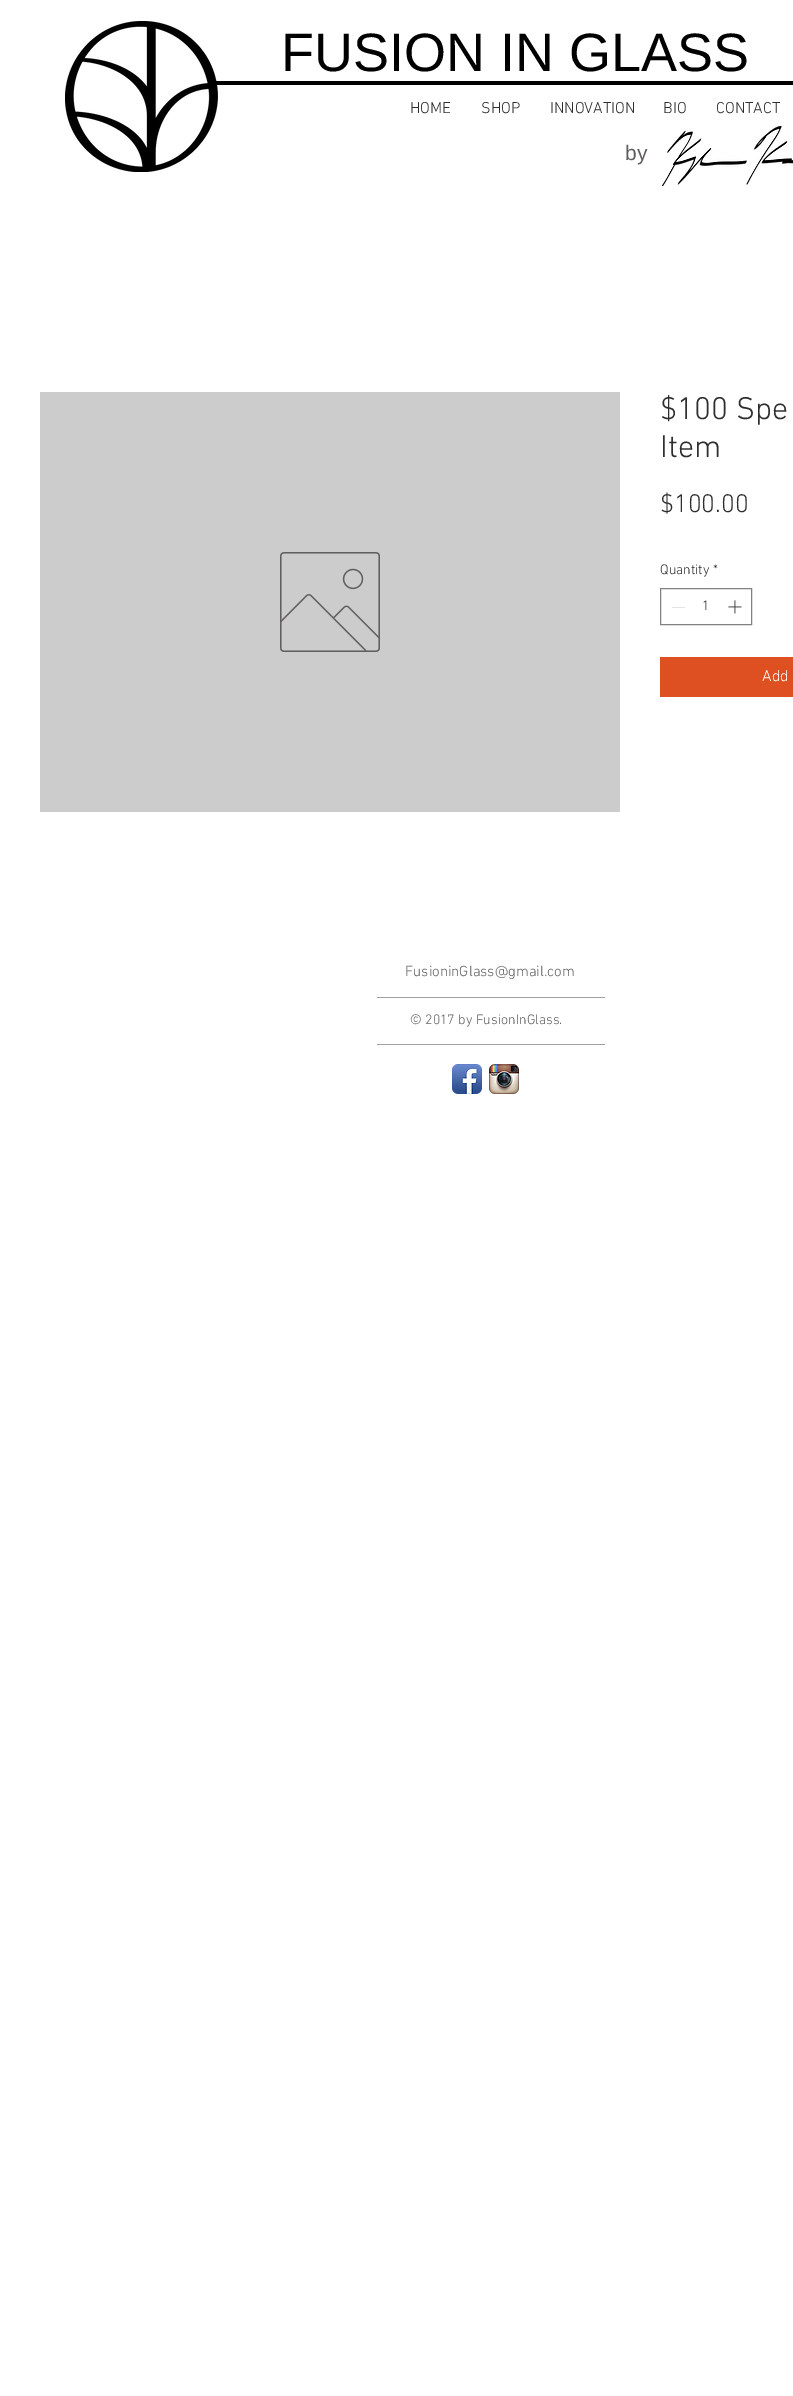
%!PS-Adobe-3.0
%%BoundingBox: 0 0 793 2396
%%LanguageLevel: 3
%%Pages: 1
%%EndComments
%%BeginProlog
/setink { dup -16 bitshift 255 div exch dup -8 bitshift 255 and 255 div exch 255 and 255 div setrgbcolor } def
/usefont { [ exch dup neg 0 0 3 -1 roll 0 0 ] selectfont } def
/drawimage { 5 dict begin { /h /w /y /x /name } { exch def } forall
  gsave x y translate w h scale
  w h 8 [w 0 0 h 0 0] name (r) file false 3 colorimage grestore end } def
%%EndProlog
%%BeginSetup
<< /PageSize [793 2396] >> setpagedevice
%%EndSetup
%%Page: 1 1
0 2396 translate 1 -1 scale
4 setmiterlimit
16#FFFFFF setink
0 0 793 2396 rectfill
16#000000 setink
212 81 581 4 rectfill
(img1.raw) 65 21 153 151 drawimage
/LiberationSans-Regular 54 usefont
281 71 moveto (FUSION IN GLASS) show
/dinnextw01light-Light 16 usefont
16#2F2E2E setink
[
    [(HOME) 410 113]
    [(SHOP) 481 113]
    [(INNOVATION) 550 113]
    [(BIO) 663 113]
    [(CONTACT) 716 113]
] { aload pop moveto show } forall
/LiberationSans-Regular 21 usefont
16#605E5E setink
625 160 moveto (by) show
(img2.raw) 662 126 131 60 drawimage
16#CCCCCC setink
40 392 580 420 rectfill
(img3.raw) 280 552 100 100 drawimage
/dinnextw01light-Light 32 usefont
16#2F2E2E setink
660 419 moveto ($100 Spe) show
660 457 moveto (Item) show
/dinnextw01light-Light 26 usefont
660 512 moveto ($100.00) show
/dinnextw01light-Light 14 usefont
660 574 moveto (Quantity) show
713 574 moveto (*) show
16#828282 setink
660.5 588.5 91 36 rectstroke
16#E3E3E3 setink
672 607 13 1 rectfill
16#2F2E2E setink
702 610 moveto (1) show
(img4.raw) 728 600 14 14 drawimage
16#DE5021 setink
660 657 133 40 rectfill
/dinnextw01light-Light 16 usefont
16#FFFFFF setink
762 681 moveto (Add) show
/dinnextw01light-Light 15 usefont
16#605E5E setink
405 976 moveto (FusioninGlass@gmail.com) show
16#A0A09F setink
377 997 228 1 rectfill
/dinnextw01light-Light 14 usefont
16#605E5E setink
410 1024 moveto (© 2017 by FusionInGlass.) show
16#A0A09F setink
377 1044 228 1 rectfill
(img5.raw) 452 1064 30 30 drawimage
(img6.raw) 489 1064 30 30 drawimage
showpage
%%EOF
